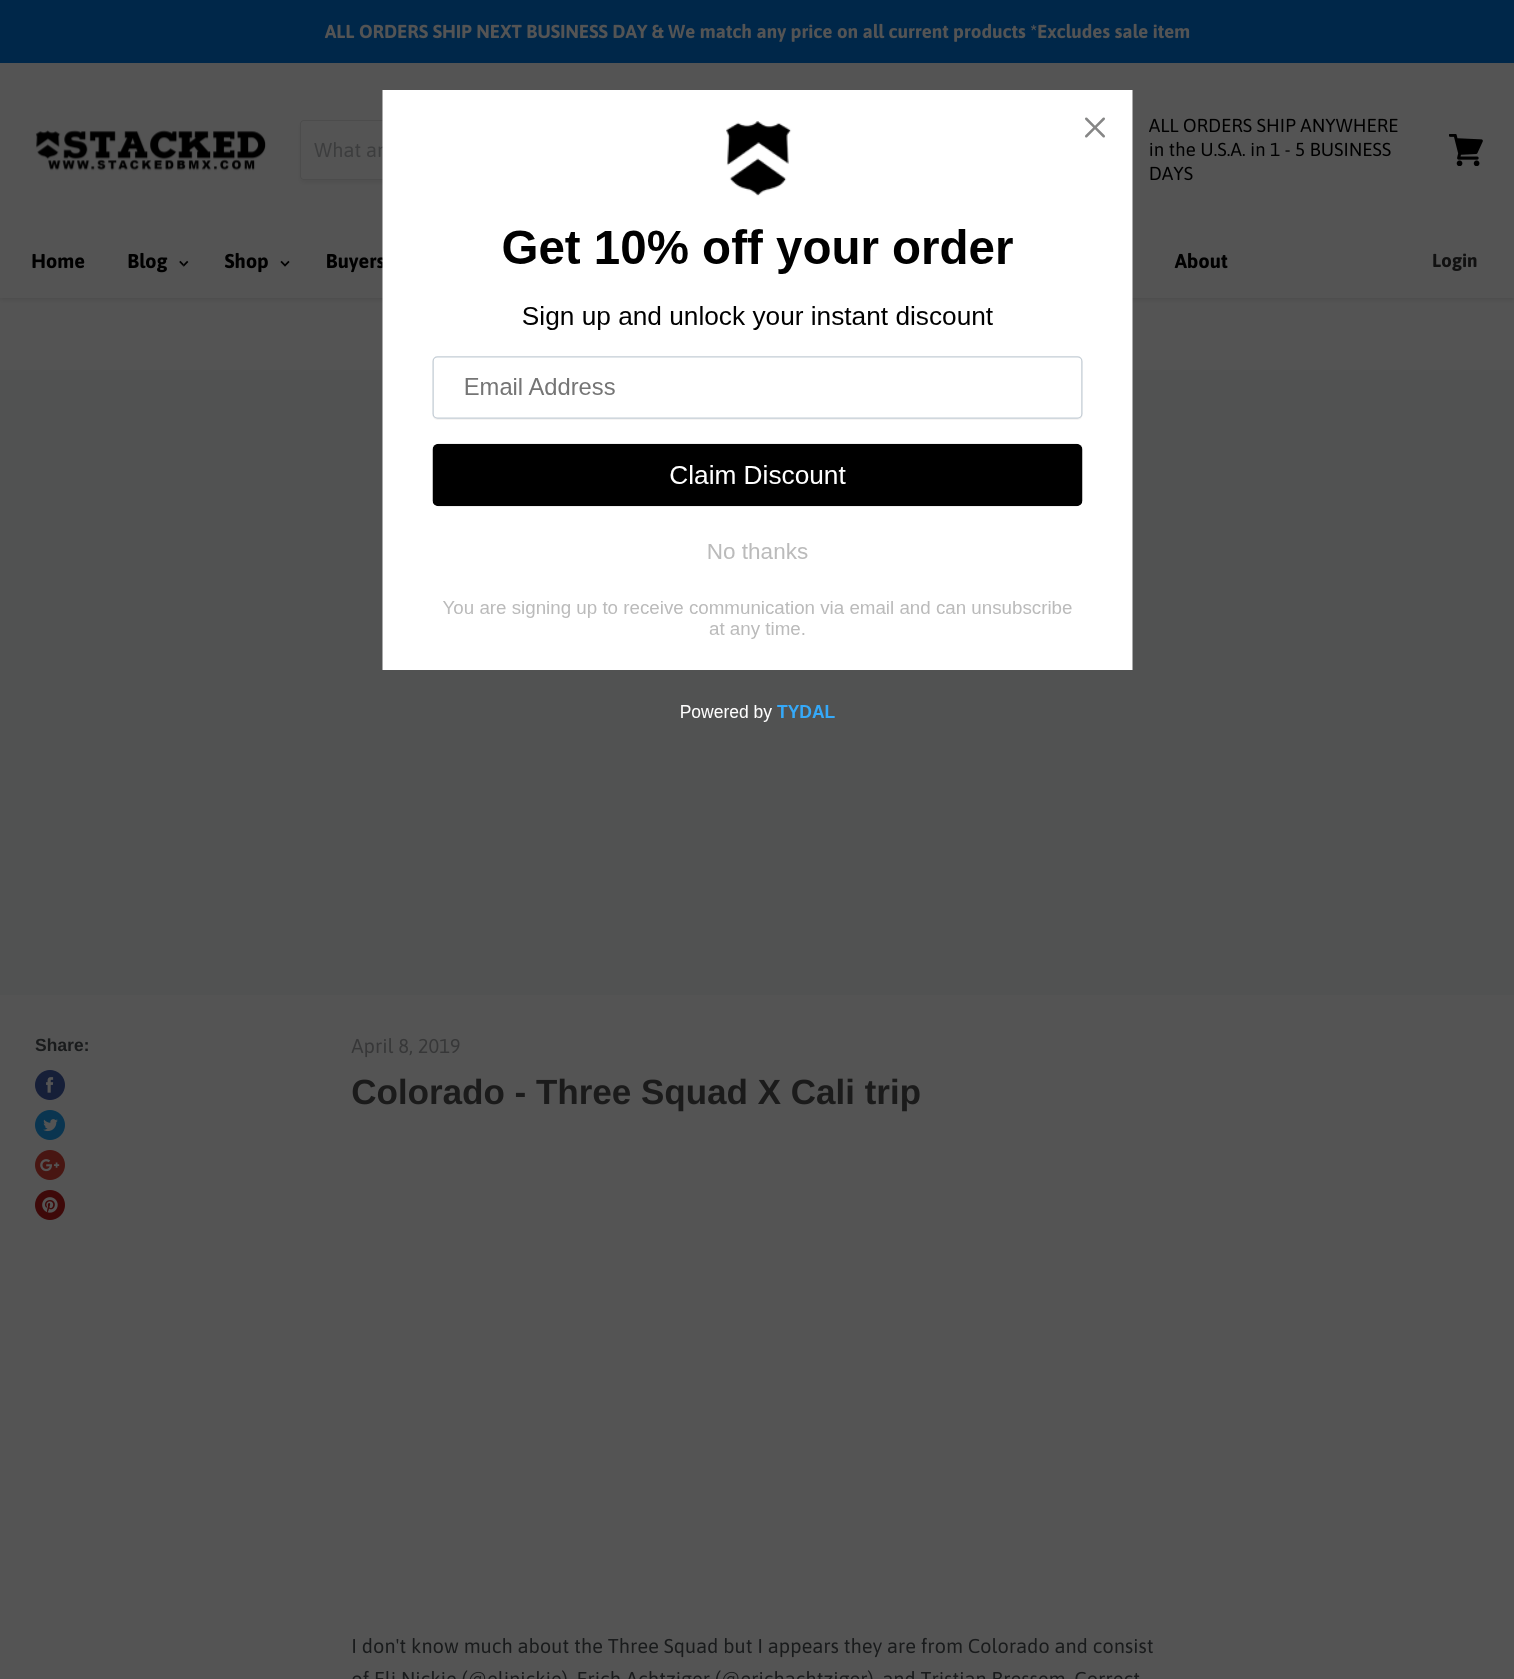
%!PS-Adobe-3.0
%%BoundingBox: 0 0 1514 1679
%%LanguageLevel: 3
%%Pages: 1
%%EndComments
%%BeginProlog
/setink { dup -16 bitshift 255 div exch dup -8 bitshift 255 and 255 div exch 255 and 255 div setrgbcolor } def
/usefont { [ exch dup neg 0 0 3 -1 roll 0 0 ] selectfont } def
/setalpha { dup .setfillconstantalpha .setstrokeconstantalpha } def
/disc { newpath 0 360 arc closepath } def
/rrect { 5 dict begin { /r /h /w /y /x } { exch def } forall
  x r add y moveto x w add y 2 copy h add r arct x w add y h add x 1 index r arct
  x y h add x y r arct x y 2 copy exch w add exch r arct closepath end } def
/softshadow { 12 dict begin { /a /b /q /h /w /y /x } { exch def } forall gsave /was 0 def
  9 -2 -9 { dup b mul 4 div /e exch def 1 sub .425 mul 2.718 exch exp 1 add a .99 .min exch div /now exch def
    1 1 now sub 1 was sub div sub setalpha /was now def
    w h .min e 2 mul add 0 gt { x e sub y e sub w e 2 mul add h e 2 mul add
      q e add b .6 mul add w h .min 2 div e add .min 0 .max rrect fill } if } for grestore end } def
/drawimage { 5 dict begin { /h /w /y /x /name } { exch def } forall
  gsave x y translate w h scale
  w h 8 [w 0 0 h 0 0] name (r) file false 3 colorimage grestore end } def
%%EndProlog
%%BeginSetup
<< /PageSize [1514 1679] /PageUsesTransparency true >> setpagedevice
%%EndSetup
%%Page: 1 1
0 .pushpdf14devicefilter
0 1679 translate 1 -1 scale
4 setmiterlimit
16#FFFFFF setink
0 0 1514 1679 rectfill
16#7F7F7F setink
0 1 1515 298 0 2.5 0.25 softshadow
16#FFFFFF setink
0 63 1514 235 rectfill
16#0076DE setink
0 0 1514 63 rectfill
/Asap-Bold 18.75 usefont
16#FFFFFF setink
325 38 moveto (ALL ORDERS SHIP NEXT BUSINESS DAY & We match any price on all current products *Excludes sale item) show
(img2.raw) 35 130 232 41 drawimage
16#7F7F7F setink
300 123 735 60 5 2 0.11 softshadow
0.2 setalpha
304 120.5 moveto 1030 120.5 lineto 1032.5 120.5 1034.5 122.5 1034.5 125 curveto 1034.5 175 lineto 1034.5 177.5 1032.5 179.5 1030 179.5 curveto 304 179.5 lineto 302 179.5 300.5 178 300.5 176 curveto 300.5 124 lineto 300.5 122 302 120.5 304 120.5 curveto closepath stroke
1 setalpha
16#FFFFFF setink
305 121 moveto 968 121 lineto 968 179 lineto 305 179 lineto 303 179 301 177 301 175 curveto 301 125 lineto 301 123 303 121 305 121 curveto closepath fill
/Asap-Regular 20 usefont
16#B7B9BB setink
314 157 moveto (What ar) show
/Asap-Regular 18.75 usefont
16#000000 setink
[
    [(ALL ORDERS SHIP ANYWHERE) 1149 132]
    [(in the U.S.A. in 1 - 5 BUSINESS) 1149 156]
    [(DAYS) 1149 180]
] { aload pop moveto show } forall
(img3.raw) 1449 134 34 32 drawimage
/Asap-Bold 20 usefont
31 268 moveto (Home) show
127 268 moveto (Blog) show
(img4.raw) 179 260 10 7 drawimage
225 268 moveto (Shop) show
(img5.raw) 280 260 10 7 drawimage
326 268 moveto (Buyers) show
1175 268 moveto (About) show
/Asap-Bold 18.75 usefont
16#333333 setink
1432 267 moveto (Login) show
16#F7F8F8 setink
0 370 1514 625 rectfill
/Arimo-Bold 17.5 usefont
16#4C5154 setink
35 1051 moveto (Share:) show
16#425DAB setink
50 1085 15 disc fill
(img6.raw) 46 1077 8 16 drawimage
16#1DA1F2 setink
50 1125 15 disc fill
(img7.raw) 43 1119 15 13 drawimage
16#DB4437 setink
50 1165 15 disc fill
(img8.raw) 40 1159 20 13 drawimage
16#BD1C1C setink
50 1205 15 disc fill
(img9.raw) 42 1197 16 16 drawimage
/Asap-Regular 20 usefont
16#A6A8AA setink
351 1053 moveto (April 8, 2019) show
/Arimo-Bold 35 usefont
16#535353 setink
351 1104 moveto (Colorado - Three Squad X Cali trip) show
/Asap-Regular 20 usefont
16#4C5154 setink
351 1653 moveto (I don't know much about the Three Squad but I appears they are from Colorado and consist) show
(img1.raw) 0 0 1514 1679 drawimage
.poppdf14devicefilter showpage
%%EOF
